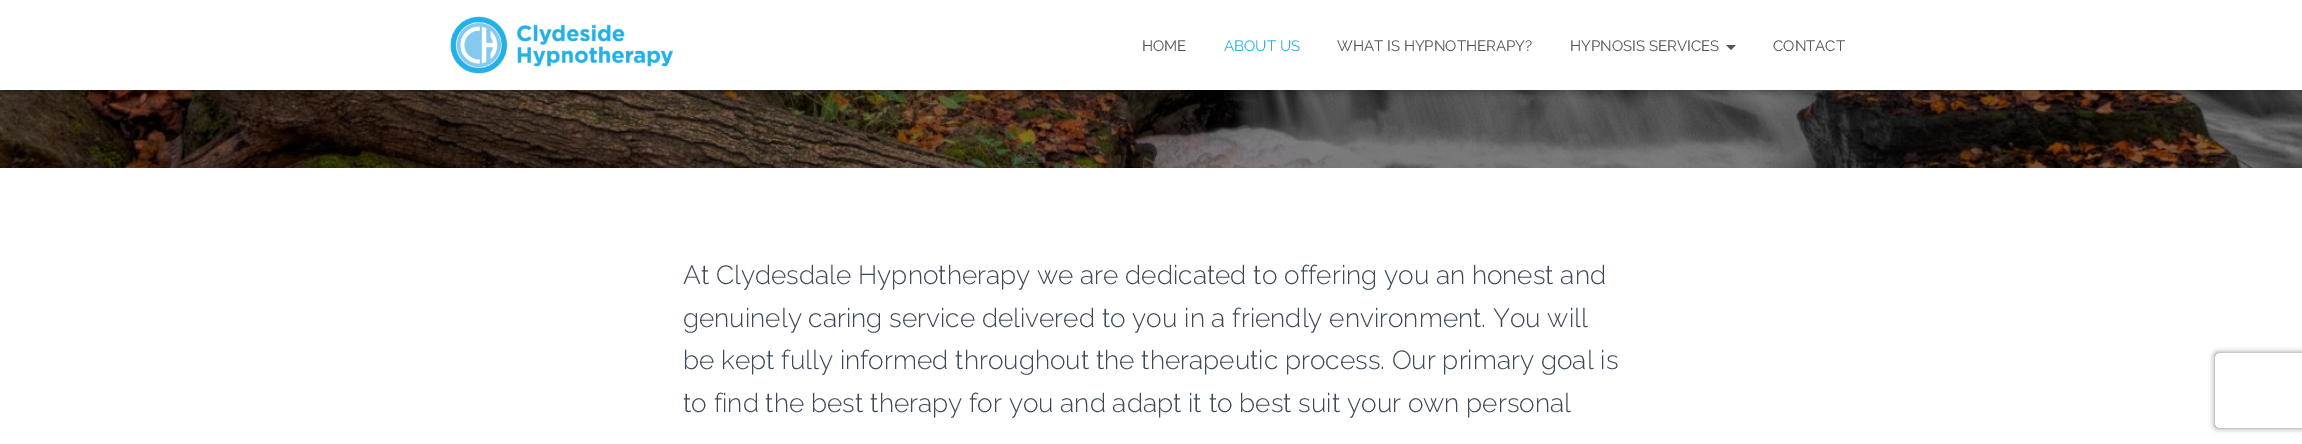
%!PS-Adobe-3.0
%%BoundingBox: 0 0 2302 444
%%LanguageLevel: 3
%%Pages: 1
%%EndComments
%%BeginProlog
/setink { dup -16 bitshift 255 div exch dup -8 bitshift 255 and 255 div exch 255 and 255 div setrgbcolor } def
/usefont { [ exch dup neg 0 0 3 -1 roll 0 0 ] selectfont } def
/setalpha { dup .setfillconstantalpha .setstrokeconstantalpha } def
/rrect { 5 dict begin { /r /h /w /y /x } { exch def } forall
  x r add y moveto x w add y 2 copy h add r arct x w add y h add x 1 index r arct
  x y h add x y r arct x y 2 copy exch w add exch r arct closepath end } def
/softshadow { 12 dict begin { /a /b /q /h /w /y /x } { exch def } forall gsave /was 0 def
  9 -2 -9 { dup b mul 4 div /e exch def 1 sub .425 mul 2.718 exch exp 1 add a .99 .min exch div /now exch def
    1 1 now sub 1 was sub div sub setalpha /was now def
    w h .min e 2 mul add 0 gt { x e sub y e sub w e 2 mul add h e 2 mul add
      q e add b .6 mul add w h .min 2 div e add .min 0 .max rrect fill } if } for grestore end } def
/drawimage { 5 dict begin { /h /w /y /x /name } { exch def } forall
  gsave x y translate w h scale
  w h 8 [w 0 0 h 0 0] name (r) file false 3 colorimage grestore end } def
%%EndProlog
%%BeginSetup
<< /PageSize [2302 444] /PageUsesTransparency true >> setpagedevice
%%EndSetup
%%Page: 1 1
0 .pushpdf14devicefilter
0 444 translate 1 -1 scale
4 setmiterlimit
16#FFFFFF setink
0 0 2302 444 rectfill
(img2.raw) 0 90 2302 78 drawimage
16#000000 setink
3 8 2297 85 0 3 0.1 softshadow
0 1 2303 90 0 6 0.12 softshadow
8 9 2287 75 0 6 0.42 softshadow
16#FFFFFF setink
0 0 2302 90 rectfill
(img1.raw) 450 16 223 58 drawimage
/Raleway-Regular 15 usefont
16#555555 setink
1142 51 moveto (HOME) show
16#2DAFE6 setink
1224 51 moveto (ABOUT US) show
16#555555 setink
1337 51 moveto (WHAT IS HYPNOTHERAPY?) show
1570 51 moveto (HYPNOSIS SERVICES) show
1726 45 moveto 1736 45 lineto 1731 50 lineto closepath fill
1773 51 moveto (CONTACT) show
/Raleway-Light 26.25 usefont
16#3C4858 setink
[
    [(At Clydesdale Hypnotherapy we are dedicated to offering you an honest and) 683 284]
    [(genuinely caring service delivered to you in a friendly environment. You will) 683 327]
    [(be kept fully informed throughout the therapeutic process. Our primary goal is) 683 369]
    [(to find the best therapy for you and adapt it to best suit your own personal) 683 412]
] { aload pop moveto show } forall
gsave
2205 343 moveto 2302 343 lineto 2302 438 lineto 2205 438 lineto closepath 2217.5 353 moveto 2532.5 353 lineto 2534 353 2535 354 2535 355.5 curveto 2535 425.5 lineto 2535 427 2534 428 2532.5 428 curveto 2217.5 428 lineto 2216 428 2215 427 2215 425.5 curveto 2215 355.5 lineto 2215 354 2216 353 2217.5 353 curveto closepath eoclip newpath
16#808080 setink
2215 353 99 75 2.5 3 1 softshadow
grestore
.poppdf14devicefilter showpage
%%EOF
